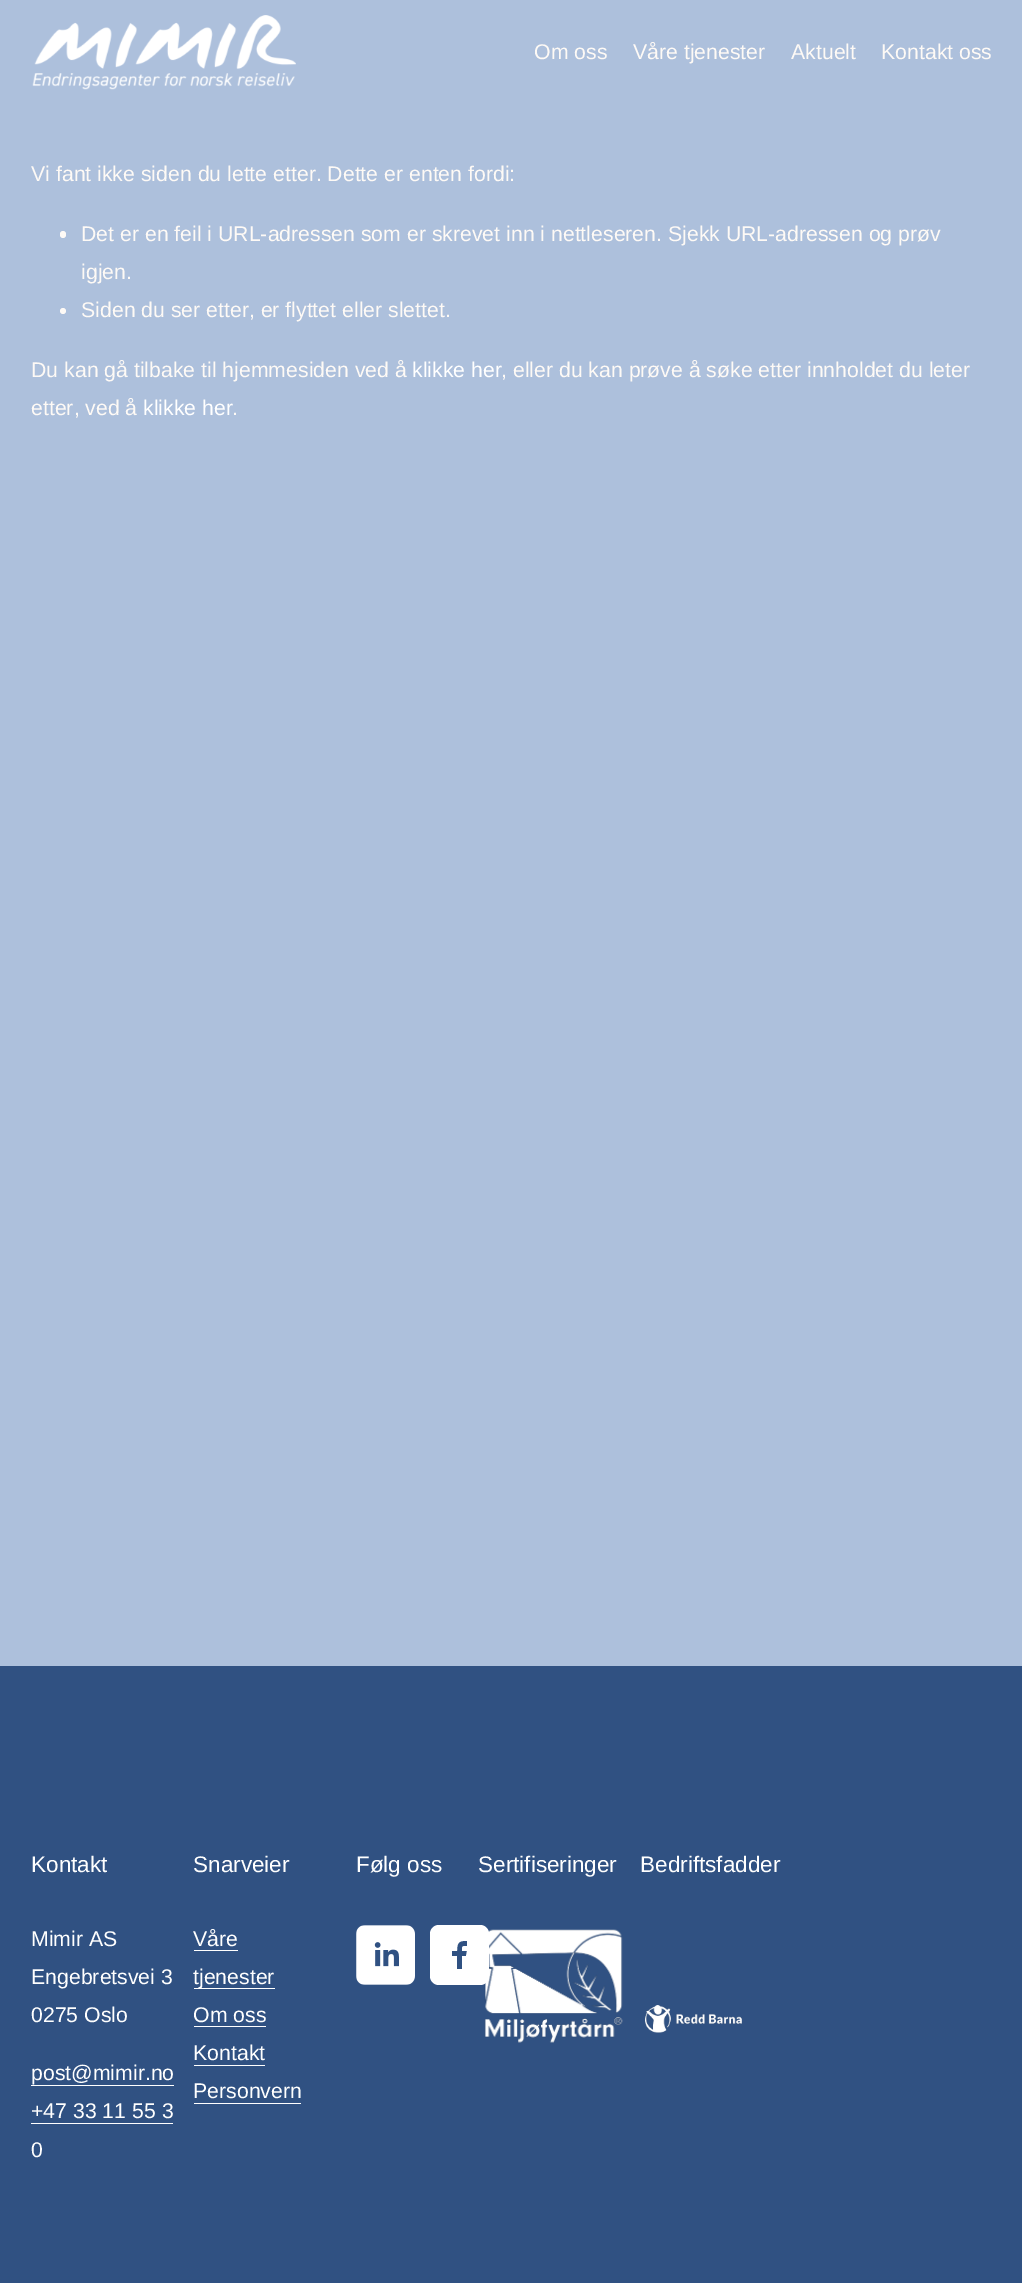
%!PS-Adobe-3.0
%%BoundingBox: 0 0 1022 2283
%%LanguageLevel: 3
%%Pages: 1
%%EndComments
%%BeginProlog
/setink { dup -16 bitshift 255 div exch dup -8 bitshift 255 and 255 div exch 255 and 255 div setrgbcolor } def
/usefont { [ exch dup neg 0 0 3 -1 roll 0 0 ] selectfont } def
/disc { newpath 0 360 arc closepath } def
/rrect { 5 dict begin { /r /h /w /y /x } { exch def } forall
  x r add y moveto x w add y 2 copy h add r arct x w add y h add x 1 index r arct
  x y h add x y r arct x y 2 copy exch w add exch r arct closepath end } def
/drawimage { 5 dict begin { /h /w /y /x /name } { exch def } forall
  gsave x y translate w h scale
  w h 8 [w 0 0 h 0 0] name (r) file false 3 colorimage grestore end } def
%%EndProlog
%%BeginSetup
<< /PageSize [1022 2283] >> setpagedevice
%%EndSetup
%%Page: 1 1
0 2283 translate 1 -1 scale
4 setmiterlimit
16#ADC0DC setink
0 0 1022 2283 rectfill
(img1.raw) 32 15 264 75 drawimage
/LiberationSans-Regular 21.25 usefont
16#FEFAF6 setink
[
    [(Om oss) 534 59]
    [(Våre tjenester) 633 59]
    [(Aktuelt) 791 59]
    [(Kontakt oss) 881 59]
    [(Vi fant ikke siden du lette etter. Dette er enten fordi:) 31 181]
] { aload pop moveto show } forall
60 231 6 7 3 rrect fill
81 241 moveto (Det er en feil i URL-adressen som er skrevet inn i nettleseren. Sjekk URL-adressen og prøv) show
81 279 moveto (igjen.) show
63 311 3 disc fill
81 317 moveto (Siden du ser etter, er flyttet eller slettet.) show
31 377 moveto (Du kan gå tilbake til hjemmesiden ved å) show
16#FFFFFF setink
412 377 moveto (klikke her) show
16#FEFAF6 setink
501 377 moveto (, eller du kan prøve å søke etter innholdet du leter) show
31 415 moveto (etter, ved å) show
16#FFFFFF setink
143 415 moveto (klikke her) show
16#FEFAF6 setink
232 415 moveto (.) show
16#305182 setink
0 1666 1022 617 rectfill
/LiberationSans-Regular 22.5 usefont
16#FFFFFF setink
31 1872 moveto (Kontakt) show
/LiberationSans-Regular 21.25 usefont
[
    [(Mimir AS) 31 1946]
    [(Engebretsvei 3) 31 1984]
    [(0275 Oslo) 31 2022]
    [(post@mimir.no) 31 2080]
] { aload pop moveto show } forall
31 2085 143 1 rectfill
31 2118 moveto (+47 33 11 55 3) show
31 2123 142 1 rectfill
31 2157 moveto (0) show
/LiberationSans-Regular 22.5 usefont
193 1872 moveto (Snarveier) show
/LiberationSans-Regular 21.25 usefont
193 1946 moveto (Våre) show
194 1950 44 1 rectfill
194 1988 81 1 rectfill
193 1984 moveto (tjenester) show
193 2022 moveto (Om oss) show
194 2026 72 1 rectfill
193 2060 moveto (Kontakt) show
194 2065 71 1 rectfill
193 2098 moveto (Personvern) show
194 2103 107 1 rectfill
/LiberationSans-Regular 22.5 usefont
[
    [(Følg oss) 356 1872]
    [(Sertifiseringer) 478 1872]
    [(Bedriftsfadder) 640 1872]
] { aload pop moveto show } forall
(img2.raw) 356 1925 59 60 drawimage
(img3.raw) 484 1929 139 114 drawimage
439 1925 moveto 434 1925 430 1929 430 1934 curveto 430 1976 lineto 430 1981 434 1985 439 1985 curveto 480 1985 lineto 485 1985 489 1981 489 1976 curveto 489 1934 lineto 489 1929 485 1925 480 1925 curveto closepath 467 1946 moveto 467 1941 lineto 458 1940 457 1944 457 1951 curveto 452 1951 lineto 452 1956 lineto 457 1956 lineto 457 1969 lineto 462 1969 lineto 462 1956 lineto 466 1956 lineto 467 1951 lineto 462 1951 lineto 462 1946 462 1946 467 1946 curveto closepath eofill
(img4.raw) 644 2005 98 28 drawimage
showpage
%%EOF
